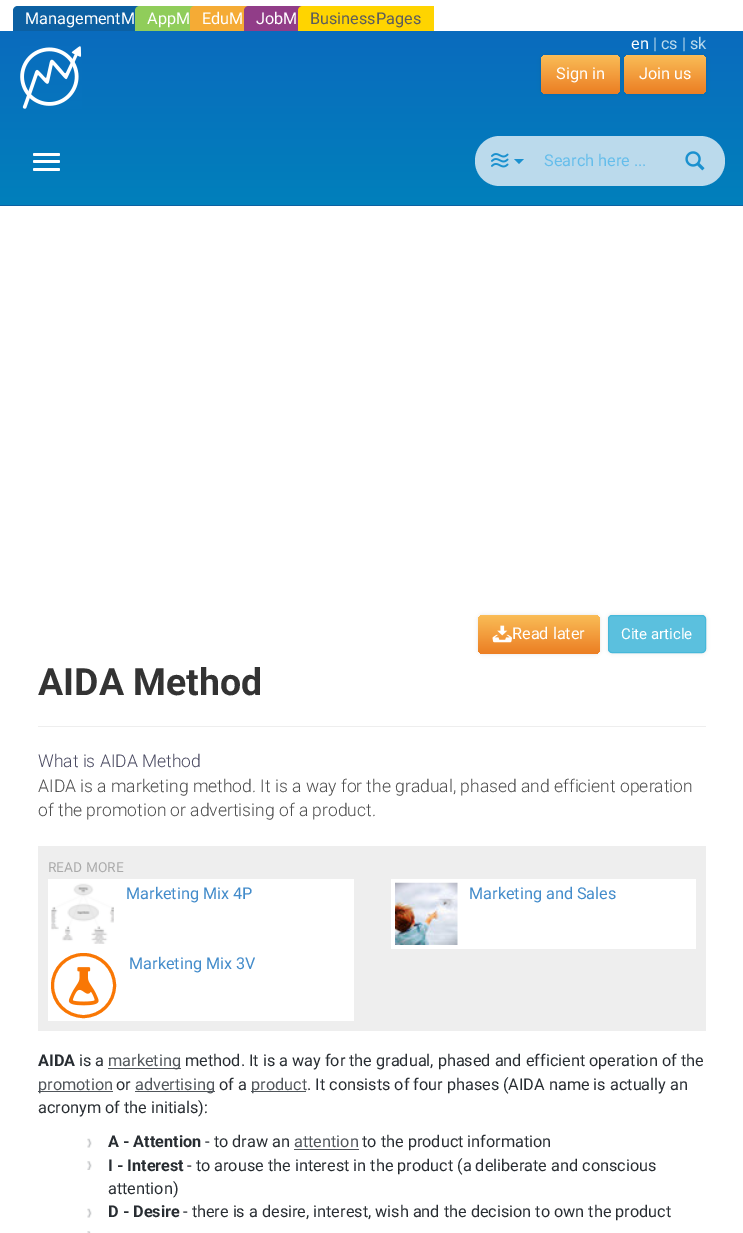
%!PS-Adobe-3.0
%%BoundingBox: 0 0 743 1233
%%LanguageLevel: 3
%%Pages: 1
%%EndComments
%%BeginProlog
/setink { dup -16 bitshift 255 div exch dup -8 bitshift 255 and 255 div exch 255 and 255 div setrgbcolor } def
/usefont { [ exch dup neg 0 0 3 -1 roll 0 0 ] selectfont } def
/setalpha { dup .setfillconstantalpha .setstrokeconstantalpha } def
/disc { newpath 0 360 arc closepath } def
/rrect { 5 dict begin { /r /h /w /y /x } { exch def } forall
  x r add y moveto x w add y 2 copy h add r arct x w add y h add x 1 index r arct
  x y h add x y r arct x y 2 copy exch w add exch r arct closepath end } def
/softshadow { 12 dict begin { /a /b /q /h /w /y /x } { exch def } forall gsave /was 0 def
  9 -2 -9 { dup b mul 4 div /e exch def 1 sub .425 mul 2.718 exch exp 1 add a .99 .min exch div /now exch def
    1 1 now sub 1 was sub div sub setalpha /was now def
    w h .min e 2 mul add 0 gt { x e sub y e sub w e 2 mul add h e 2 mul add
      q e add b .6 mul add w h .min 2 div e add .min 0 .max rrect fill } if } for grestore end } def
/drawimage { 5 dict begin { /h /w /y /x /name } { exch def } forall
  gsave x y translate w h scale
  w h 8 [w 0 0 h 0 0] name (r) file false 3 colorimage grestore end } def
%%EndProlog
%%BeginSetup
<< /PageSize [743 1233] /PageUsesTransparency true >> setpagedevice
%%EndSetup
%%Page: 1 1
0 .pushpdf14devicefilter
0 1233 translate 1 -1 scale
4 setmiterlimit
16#FFFFFF setink
0 0 743 1233 rectfill
16#0C60A2 setink
18 6 moveto 178 6 lineto 178 31 lineto 13 31 lineto 13 11 lineto 13 8 15 6 18 6 curveto closepath fill
/Roboto-Regular 16.25 usefont
16#FFFFFF setink
25 24 moveto (ManagementM) show
16#90CD5A setink
140 6 moveto 234 6 lineto 234 31 lineto 135 31 lineto 135 11 lineto 135 8 137 6 140 6 curveto closepath fill
16#FFFFFF setink
147 24 moveto (AppM) show
16#F5AB35 setink
195 6 moveto 288 6 lineto 288 31 lineto 190 31 lineto 190 11 lineto 190 8 192 6 195 6 curveto closepath fill
16#FFFFFF setink
202 24 moveto (EduM) show
16#913D88 setink
249 6 moveto 341 6 lineto 341 31 lineto 244 31 lineto 244 11 lineto 244 8 246 6 249 6 curveto closepath fill
16#FFFFFF setink
256 24 moveto (JobM) show
16#FFD400 setink
303 6 moveto 434 6 lineto 434 31 lineto 298 31 lineto 298 11 lineto 298 8 300 6 303 6 curveto closepath fill
16#5C5C5C setink
310 24 moveto (BusinessPages) show
gsave 0 31 moveto 743 31 lineto 743 205 lineto 0 205 lineto closepath clip newpath
<< /ShadingType 2 /ColorSpace /DeviceRGB /Coords [372 31 372 205] /Extend [true true] /Function << /FunctionType 2 /Domain [0 1] /C0 [0.039 0.42 0.745] /C1 [0.004 0.502 0.733] /N 1 >> >> shfill grestore
16#0C60A2 setink
0 205 743 1 rectfill
(img1.raw) 20 46 62 63 drawimage
16#000000 setink
541 55 79 39 5 2 0.1 softshadow
gsave 541 55 79 39 5 rrect clip newpath
<< /ShadingType 2 /ColorSpace /DeviceRGB /Coords [581 55 581 94] /Extend [true true] /Function << /FunctionType 3 /Domain [0 1] /Functions [<< /FunctionType 2 /Domain [0 1] /C0 [0.98 0.737 0.337] /C1 [0.98 0.737 0.337] /N 1 >> << /FunctionType 2 /Domain [0 1] /C0 [0.98 0.737 0.337] /C1 [0.925 0.498 0.141] /N 1 >> << /FunctionType 2 /Domain [0 1] /C0 [0.925 0.498 0.141] /C1 [0.925 0.498 0.141] /N 1 >>] /Bounds [0.01 0.98] /Encode [0 1 0 1 0 1] >> >> shfill grestore
624 55 82 39 5 2 0.1 softshadow
16#FFFFFF setink
631 49 moveto (en) show
16#BBDAEC setink
653 49 moveto (| cs | sk) show
16#FFFFFF setink
556 79 moveto (Sign in) show
gsave 624 55 82 39 5 rrect clip newpath
<< /ShadingType 2 /ColorSpace /DeviceRGB /Coords [665 55 665 94] /Extend [true true] /Function << /FunctionType 3 /Domain [0 1] /Functions [<< /FunctionType 2 /Domain [0 1] /C0 [0.98 0.737 0.337] /C1 [0.98 0.737 0.337] /N 1 >> << /FunctionType 2 /Domain [0 1] /C0 [0.98 0.737 0.337] /C1 [0.925 0.498 0.141] /N 1 >> << /FunctionType 2 /Domain [0 1] /C0 [0.925 0.498 0.141] /C1 [0.925 0.498 0.141] /N 1 >>] /Bounds [0.01 0.98] /Encode [0 1 0 1 0 1] >> >> shfill grestore
639 79 moveto (Join us) show
33 153 27 3 1.5 rrect fill
33 160 27 3 1.5 rrect fill
33 168 27 3 1.5 rrect fill
16#BBDAEC setink
500 136 moveto 539 136 lineto 539 186 lineto 500 186 lineto 486 186 475 175 475 161 curveto 475 147 486 136 500 136 curveto closepath fill
(img2.raw) 491 153 18 15 drawimage
16#1B91CF setink
514 159 moveto 524 159 lineto 519 164 lineto closepath fill
16#BBDAEC setink
539 136 131 50 rectfill
16#65BDEB setink
544 166 moveto (Search here ...) show
16#BBDAEC setink
670 136 moveto 700 136 lineto 714 136 725 147 725 161 curveto 725 175 714 186 700 186 curveto 670 186 lineto closepath fill
(img3.raw) 685 151 20 20 drawimage
gsave
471 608 moveto 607 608 lineto 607 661 lineto 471 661 lineto closepath 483 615 moveto 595 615 lineto 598 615 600 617 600 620 curveto 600 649 lineto 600 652 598 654 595 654 curveto 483 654 lineto 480 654 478 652 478 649 curveto 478 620 lineto 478 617 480 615 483 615 curveto closepath eoclip newpath
16#000000 setink
478 615 122 39 5 2 0.1 softshadow
grestore
gsave 478 615 122 39 5 rrect clip newpath
<< /ShadingType 2 /ColorSpace /DeviceRGB /Coords [539 615 539 654] /Extend [true true] /Function << /FunctionType 3 /Domain [0 1] /Functions [<< /FunctionType 2 /Domain [0 1] /C0 [0.98 0.737 0.337] /C1 [0.98 0.737 0.337] /N 1 >> << /FunctionType 2 /Domain [0 1] /C0 [0.98 0.737 0.337] /C1 [0.925 0.498 0.141] /N 1 >> << /FunctionType 2 /Domain [0 1] /C0 [0.925 0.498 0.141] /C1 [0.925 0.498 0.141] /N 1 >>] /Bounds [0.01 0.98] /Encode [0 1 0 1 0 1] >> >> shfill grestore
(img4.raw) 492 625 20 18 drawimage
16#FFFFFF setink
512 639 moveto (Read later) show
16#000000 setink
608 615 98 38 4 2 0.1 softshadow
16#5BC0DE setink
608.5 615.5 97 37 3.5 rrect gsave fill grestore
16#46B8DA setink
stroke
/Roboto-Regular 15 usefont
16#FFFFFF setink
621 639 moveto (Cite article) show
16#EEEEEE setink
38 726 668 1 rectfill
/Roboto-Bold 37.5 usefont
16#333333 setink
38 695 moveto (AIDA Method) show
/Roboto-Light 17.5 usefont
16#4A4A61 setink
38 767 moveto (What is AIDA Method) show
16#4D4D4D setink
38 792 moveto (AIDA is a marketing method. It is a way for the gradual, phased and efficient operation) show
38 816 moveto (of the promotion or advertising of a product.) show
16#EEEEEE setink
38 846 668 185 rectfill
/Roboto-Regular 13.75 usefont
16#AAAAAA setink
48 872 moveto (READ MORE) show
16#FFFFFF setink
48 879 306 142 rectfill
(img5.raw) 51 883 63 61 drawimage
/Roboto-Regular 16.25 usefont
16#428BCA setink
126 899 moveto (Marketing Mix 4P) show
16#FFFFFF setink
391 879 305 70 rectfill
(img6.raw) 395 882 63 63 drawimage
16#428BCA setink
469 899 moveto (Marketing and Sales) show
16#F97704 setink
3 setlinewidth
83.5 985.5 31 disc stroke
(img7.raw) 68 967 31 39 drawimage
16#428BCA setink
129 969 moveto (Marketing Mix 3V) show
/Roboto-Bold 16.25 usefont
16#282D32 setink
38 1066 moveto (AIDA) show
/Roboto-Regular 16.25 usefont
79 1066 moveto (is a) show
16#50555A setink
108 1068 73 1 rectfill
108 1066 moveto (marketing) show
16#282D32 setink
185 1066 moveto (method. It is a way for the gradual, phased and efficient operation of the) show
16#50555A setink
38 1091 75 1 rectfill
38 1090 moveto (promotion) show
16#282D32 setink
116 1090 moveto (or) show
16#50555A setink
135 1091 80 1 rectfill
135 1090 moveto (advertising) show
16#282D32 setink
219 1090 moveto (of a) show
16#50555A setink
251 1091 55 1 rectfill
251 1090 moveto (product) show
16#282D32 setink
307 1090 moveto (. It consists of four phases \(AIDA name is actually an) show
38 1113 moveto (acronym of the initials\):) show
(img8.raw) 87 1138 5 10 drawimage
/Roboto-Bold 16.25 usefont
108 1147 moveto (A - Attention) show
/Roboto-Regular 16.25 usefont
205 1147 moveto (- to draw an) show
16#50555A setink
294 1147 moveto (attention) show
294 1149 65 1 rectfill
16#282D32 setink
362 1147 moveto (to the product information) show
(img9.raw) 87 1161 5 9 drawimage
/Roboto-Bold 16.25 usefont
108 1171 moveto (I - Interest) show
/Roboto-Regular 16.25 usefont
187 1171 moveto (- to arouse the interest in the product \(a deliberate and conscious) show
108 1194 moveto (attention\)) show
(img8.raw) 87 1208 5 10 drawimage
/Roboto-Bold 16.25 usefont
108 1217 moveto (D - Desire) show
/Roboto-Regular 16.25 usefont
183 1217 moveto (- there is a desire, interest, wish and the decision to own the product) show
(img10.raw) 87 1231 4 2 drawimage
.poppdf14devicefilter showpage
%%EOF
